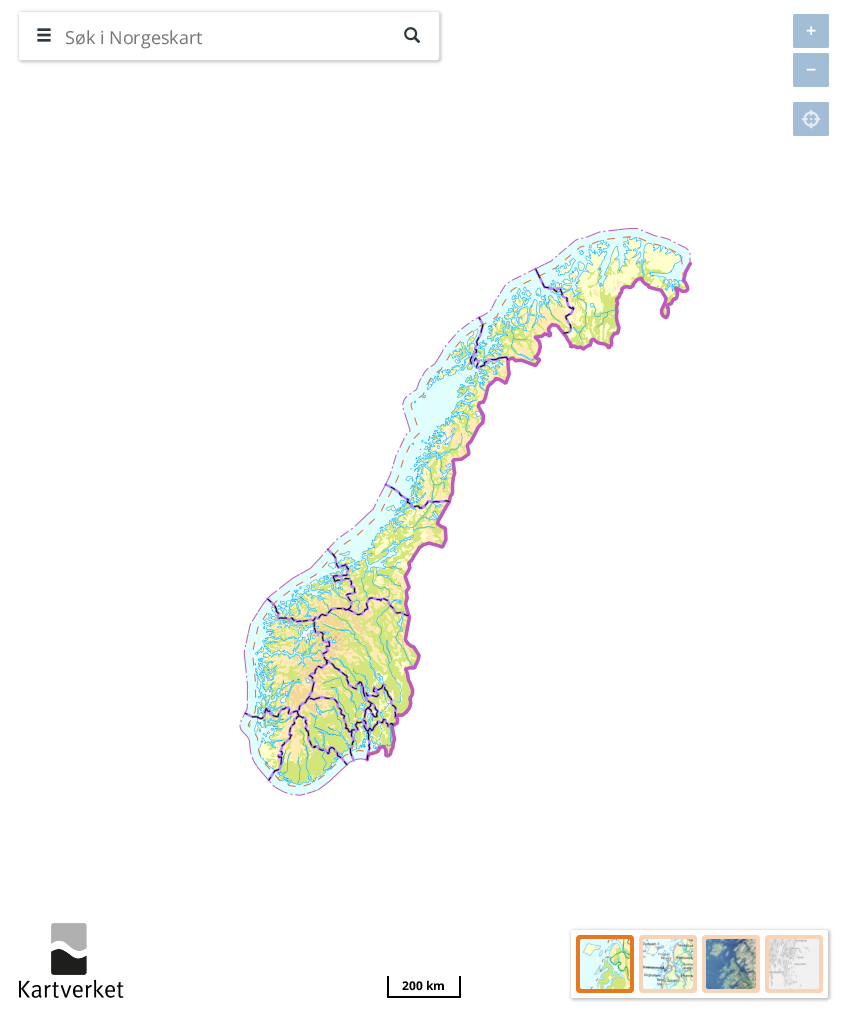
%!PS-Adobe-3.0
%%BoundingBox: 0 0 847 1023
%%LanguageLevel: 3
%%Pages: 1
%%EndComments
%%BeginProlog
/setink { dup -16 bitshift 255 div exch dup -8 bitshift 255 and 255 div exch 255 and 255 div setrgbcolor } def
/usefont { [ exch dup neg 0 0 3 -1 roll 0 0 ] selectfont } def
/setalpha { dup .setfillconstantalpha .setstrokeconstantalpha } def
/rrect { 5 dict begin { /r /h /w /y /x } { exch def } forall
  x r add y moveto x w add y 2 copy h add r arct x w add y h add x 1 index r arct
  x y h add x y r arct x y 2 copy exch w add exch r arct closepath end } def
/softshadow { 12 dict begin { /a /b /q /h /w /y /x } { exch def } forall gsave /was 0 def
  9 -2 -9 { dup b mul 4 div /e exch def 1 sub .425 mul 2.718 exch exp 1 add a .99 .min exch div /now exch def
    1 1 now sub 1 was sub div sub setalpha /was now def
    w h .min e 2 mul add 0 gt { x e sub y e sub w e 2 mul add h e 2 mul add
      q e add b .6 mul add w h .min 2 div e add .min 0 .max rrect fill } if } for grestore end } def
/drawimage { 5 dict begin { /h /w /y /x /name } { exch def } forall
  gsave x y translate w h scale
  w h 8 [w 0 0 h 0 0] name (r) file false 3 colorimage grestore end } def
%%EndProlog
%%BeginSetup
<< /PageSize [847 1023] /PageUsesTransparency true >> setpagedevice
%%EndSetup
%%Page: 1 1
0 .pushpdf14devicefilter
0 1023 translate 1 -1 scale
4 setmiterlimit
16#FFFFFF setink
0 0 847 1023 rectfill
16#000000 setink
19 12 422 50 3 1.5 0.24 softshadow
16#FFFFFF setink
19.5 12.5 419 47 1.5 rrect gsave fill grestore
stroke
(img1.raw) 37 28 14 14 drawimage
/OpenSans-Regular 18 usefont
16#757575 setink
65 44 moveto (Søk i Norgeskart) show
(img2.raw) 404 27 17 17 drawimage
16#000000 setink
571 930 259 70 3 1.5 0.24 softshadow
16#FFFFFF setink
571 930 257 68 2 rrect fill
16#E87722 setink
576 935 58 58 4 rrect fill
(img3.raw) 580 939 50 50 drawimage
16#F7D3B8 setink
639 935 58 58 4 rrect fill
(img4.raw) 643 939 50 50 drawimage
702 935 58 58 4 rrect fill
(img5.raw) 706 939 50 50 drawimage
765 935 58 58 4 rrect fill
(img6.raw) 769 939 50 50 drawimage
16#A4BDD6 setink
793 14 36 34 2 rrect fill
/OpenSans-Bold 18 usefont
16#FFFFFF setink
806 37 moveto (+) show
16#A4BDD6 setink
793 53 36 34 2 rrect fill
16#FFFFFF setink
806 76 moveto (−) show
[
    [459 976 2 22 16#000000]
    [387 996 74 2 16#000000]
    [387 976 2 22 16#000000]
] { aload pop setink rectfill } forall
/OpenSans-Bold 12 usefont
402 990 moveto (200 km) show
(img7.raw) 239 227 454 569 drawimage
16#A4BDD6 setink
793 102 36 34 2 rrect fill
(img8.raw) 802 110 19 19 drawimage
(img9.raw) 19 923 105 75 drawimage
0.9 setalpha
16#FFFFFF setink
828 1000 14 18 1 rrect fill
.poppdf14devicefilter showpage
%%EOF
